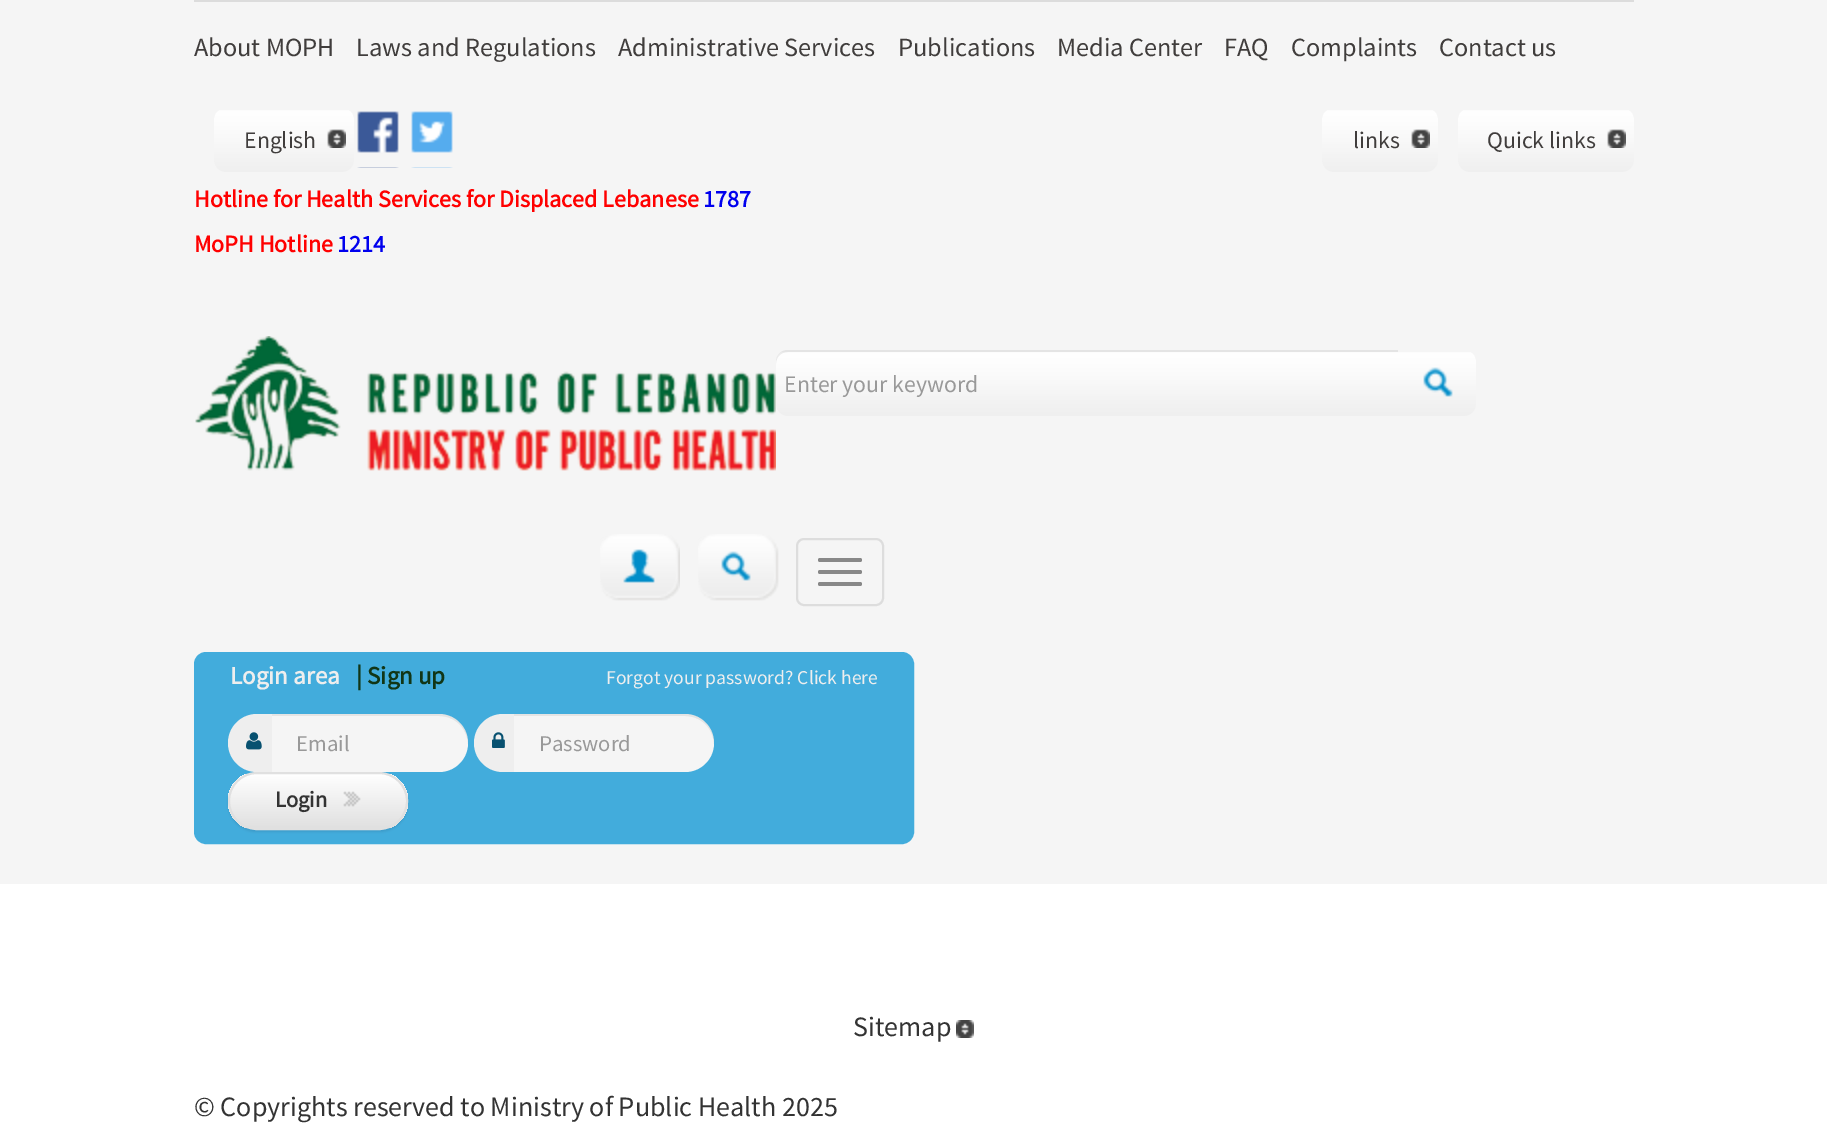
%!PS-Adobe-3.0
%%BoundingBox: 0 0 1827 1129
%%LanguageLevel: 3
%%Pages: 1
%%EndComments
%%BeginProlog
/setink { dup -16 bitshift 255 div exch dup -8 bitshift 255 and 255 div exch 255 and 255 div setrgbcolor } def
/usefont { [ exch dup neg 0 0 3 -1 roll 0 0 ] selectfont } def
/setalpha { dup .setfillconstantalpha .setstrokeconstantalpha } def
/rrect { 5 dict begin { /r /h /w /y /x } { exch def } forall
  x r add y moveto x w add y 2 copy h add r arct x w add y h add x 1 index r arct
  x y h add x y r arct x y 2 copy exch w add exch r arct closepath end } def
/softshadow { 12 dict begin { /a /b /q /h /w /y /x } { exch def } forall gsave /was 0 def
  9 -2 -9 { dup b mul 4 div /e exch def 1 sub .425 mul 2.718 exch exp 1 add a .99 .min exch div /now exch def
    1 1 now sub 1 was sub div sub setalpha /was now def
    w h .min e 2 mul add 0 gt { x e sub y e sub w e 2 mul add h e 2 mul add
      q e add b .6 mul add w h .min 2 div e add .min 0 .max rrect fill } if } for grestore end } def
/drawimage { 5 dict begin { /h /w /y /x /name } { exch def } forall
  gsave x y translate w h scale
  w h 8 [w 0 0 h 0 0] name (r) file false 3 colorimage grestore end } def
%%EndProlog
%%BeginSetup
<< /PageSize [1827 1129] /PageUsesTransparency true >> setpagedevice
%%EndSetup
%%Page: 1 1
0 .pushpdf14devicefilter
0 1129 translate 1 -1 scale
4 setmiterlimit
16#FFFFFF setink
0 0 1827 1129 rectfill
16#F5F5F5 setink
0 0 1827 884 rectfill
16#DCDCDC setink
194 0 1440 2 rectfill
/SourceSansPro-Regular 26.25 usefont
16#403D3C setink
[
    [(About MOPH) 194 56]
    [(Laws and Regulations) 356 56]
    [(Administrative Services) 618 56]
    [(Publications) 898 56]
    [(Media Center) 1057 56]
    [(FAQ) 1224 56]
    [(Complaints) 1291 56]
    [(Contact us) 1439 56]
] { aload pop moveto show } forall
(img1.raw) 214 110 140 62 drawimage
/SourceSansPro-Regular 23.75 usefont
244 148 moveto (English) show
(img2.raw) 327 129 19 19 drawimage
(img3.raw) 357 111 42 57 drawimage
(img4.raw) 411 111 42 57 drawimage
(img5.raw) 1322 110 116 62 drawimage
1353 148 moveto (links) show
(img2.raw) 1411 129 19 19 drawimage
(img6.raw) 1458 110 176 62 drawimage
1487 148 moveto (Quick links) show
(img2.raw) 1607 129 19 19 drawimage
/SourceSansPro-Bold 24 usefont
16#FF0000 setink
194 207 moveto (Hotline for Health Services for Displaced Lebanese) show
16#0000EE setink
703 207 moveto (1787) show
16#FF0000 setink
194 252 moveto (MoPH Hotline) show
16#0000EE setink
337 252 moveto (1214) show
(img7.raw) 195 336 581 135 drawimage
(img8.raw) 776 352 620 64 drawimage
(img9.raw) 1396 352 80 64 drawimage
0.07 setalpha
16#000000 setink
788 352 moveto 1398 352 lineto 1398 350 lineto 788 350 lineto 781 350 776 355 776 362 curveto 776 364 lineto 776 357 781 352 788 352 curveto closepath fill
/SourceSansPro-Regular 23.75 usefont
1 setalpha
16#999999 setink
784 392 moveto (Enter your keyword) show
(img10.raw) 1423 367 30 30 drawimage
(img11.raw) 600 534 80 67 drawimage
(img12.raw) 698 534 81 67 drawimage
16#DDDDDD setink
2 setlinewidth
797 539 86 66 7 rrect stroke
16#888888 setink
818 558 44 4 2 rrect fill
818 570 44 4 2 rrect fill
818 582 44 4 2 rrect fill
16#42ACDC setink
195 653 718 190 11 rrect gsave fill grestore
stroke
/SourceSansPro-Bold 25 usefont
16#EEEEEE setink
230 684 moveto (Login area) show
16#113616 setink
356 684 moveto (| Sign up) show
/SourceSansPro-Regular 19.6 usefont
16#EEEEEE setink
606 684 moveto (Forgot your password? Click here) show
16#000000 setink
228 774 180 58 29 1 0.07 softshadow
16#EEEEEE setink
257 714 moveto 272 714 lineto 272 772 lineto 257 772 lineto 241 772 228 759 228 743 curveto 228 727 241 714 257 714 curveto closepath fill
(img13.raw) 246 732 16 18 drawimage
16#F5F5F5 setink
272 714 moveto 439 714 lineto 455 714 468 727 468 743 curveto 468 759 455 772 439 772 curveto 272 772 lineto closepath fill
0.07 setalpha
16#000000 setink
272 716 moveto 439 716 lineto 455 716 467 728 468 744 curveto 468 743 lineto 468 727 455 714 439 714 curveto 272 714 lineto closepath fill
/SourceSansPro-Regular 22.5 usefont
1 setalpha
16#999999 setink
296 751 moveto (Email) show
16#EEEEEE setink
503 714 moveto 514 714 lineto 514 772 lineto 503 772 lineto 487 772 474 759 474 743 curveto 474 727 487 714 503 714 curveto closepath fill
(img14.raw) 492 732 13 16 drawimage
16#F5F5F5 setink
514 714 moveto 685 714 lineto 701 714 714 727 714 743 curveto 714 759 701 772 685 772 curveto 514 772 lineto closepath fill
0.07 setalpha
16#000000 setink
514 716 moveto 685 716 lineto 701 716 713 728 714 744 curveto 714 743 lineto 714 727 701 714 685 714 curveto 514 714 lineto closepath fill
1 setalpha
16#999999 setink
539 751 moveto (Password) show
gsave
228 772 180 58 29 rrect clip newpath
gsave 228 774 moveto 408 774 lineto 408 828 lineto 228 828 lineto closepath clip newpath
<< /ShadingType 2 /ColorSpace /DeviceRGB /Coords [318 774 318 828] /Extend [true true] /Function << /FunctionType 2 /Domain [0 1] /C0 [1 1 1] /C1 [0.878 0.878 0.878] /N 1 >> >> shfill grestore
grestore
16#E0E0E0 setink
229 773 178 56 28 rrect stroke
/SourceSansPro-Bold 22.5 usefont
16#333333 setink
275 807 moveto (Login) show
(img15.raw) 343 791 18 16 drawimage
/SourceSansPro-Regular 28 usefont
853 1036 moveto (Sitemap) show
(img16.raw) 956 1020 18 18 drawimage
194 1116 moveto (© Copyrights reserved to Ministry of Public Health 2025) show
.poppdf14devicefilter showpage
%%EOF
